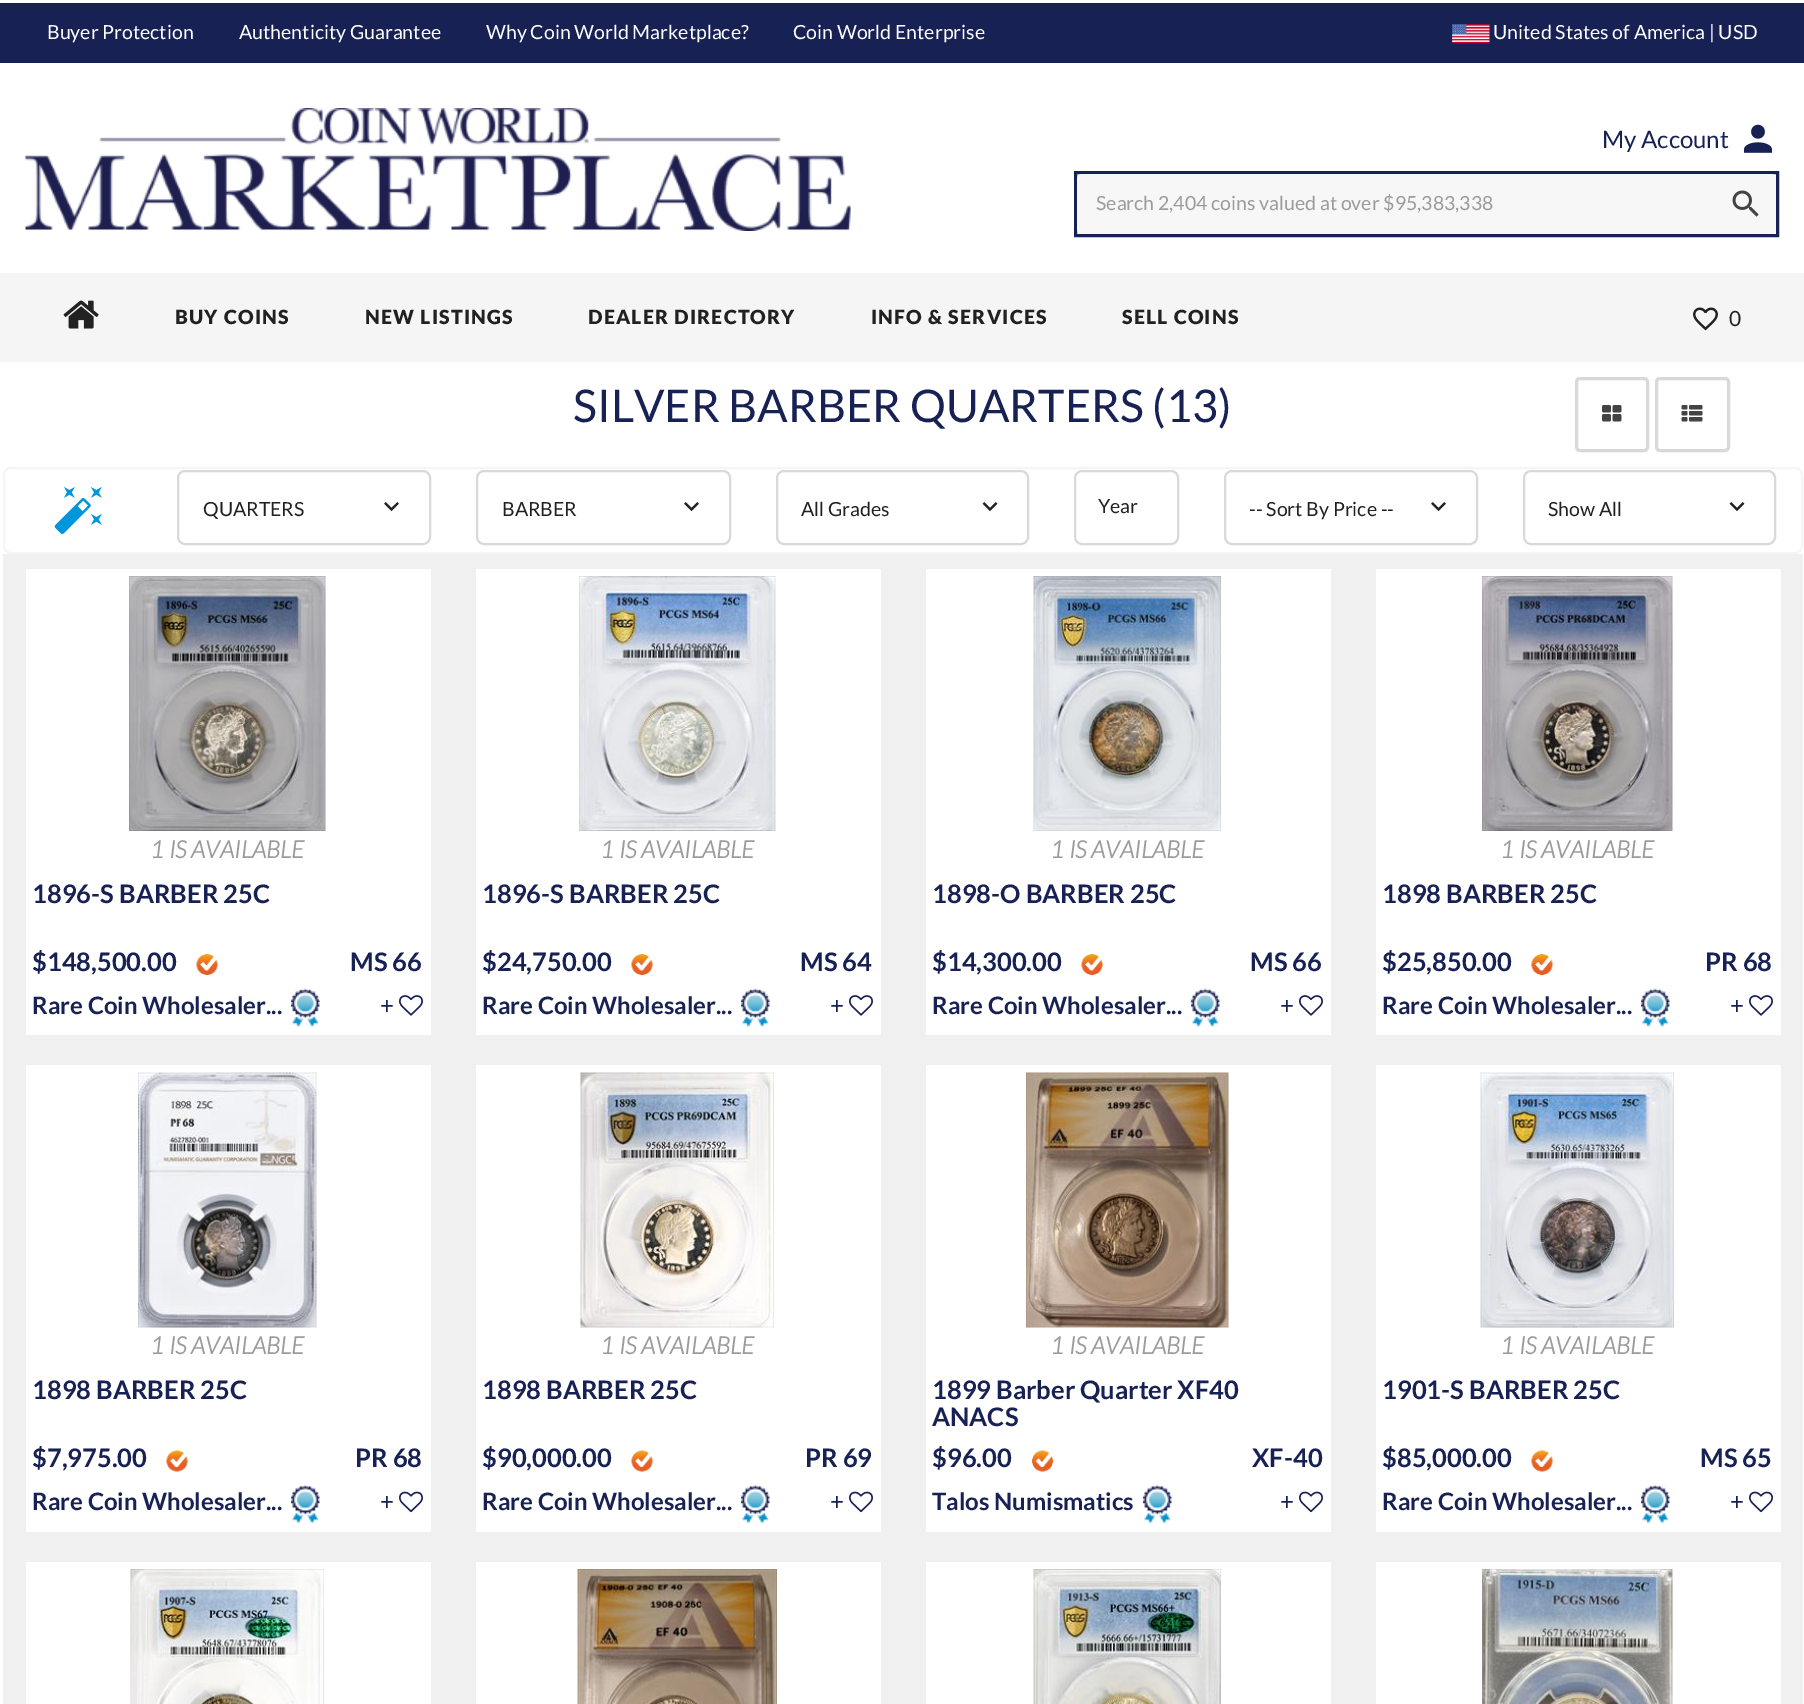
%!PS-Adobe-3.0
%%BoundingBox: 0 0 1804 1704
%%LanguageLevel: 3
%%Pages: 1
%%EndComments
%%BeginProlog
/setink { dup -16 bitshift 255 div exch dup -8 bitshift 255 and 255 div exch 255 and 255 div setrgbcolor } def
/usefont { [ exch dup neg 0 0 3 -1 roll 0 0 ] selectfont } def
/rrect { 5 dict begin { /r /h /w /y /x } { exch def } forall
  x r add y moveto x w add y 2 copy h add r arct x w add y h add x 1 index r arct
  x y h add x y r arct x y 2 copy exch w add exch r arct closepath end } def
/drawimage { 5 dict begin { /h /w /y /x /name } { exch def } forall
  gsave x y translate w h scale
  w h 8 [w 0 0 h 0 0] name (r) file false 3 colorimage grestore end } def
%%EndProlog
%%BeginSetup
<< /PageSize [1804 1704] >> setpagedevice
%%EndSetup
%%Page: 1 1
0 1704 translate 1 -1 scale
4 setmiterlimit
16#FFFFFF setink
0 0 1804 1704 rectfill
16#172154 setink
0 3 1804 60 rectfill
/Lato-Regular 19.5 usefont
16#FFFFFF setink
[
    [(Buyer Protection) 47 39]
    [(Authenticity Guarantee) 239 39]
    [(Why Coin World Marketplace?) 486 39]
    [(Coin World Enterprise) 793 39]
] { aload pop moveto show } forall
(img1.raw) 1452 24 38 20 drawimage
1493 39 moveto (United States of America | USD) show
(img2.raw) 25 108 826 123 drawimage
/Lato-Regular 24 usefont
16#172154 setink
1602 148 moveto (My Account) show
(img3.raw) 1743 124 30 29 drawimage
3 setlinewidth
1075.5 172.5 702 63 rectstroke
16#F7F7F7 setink
1077 174 699 60 5 rrect fill
/Lato-Regular 19.5 usefont
16#9B9B9B setink
1096 210 moveto (Search 2,404 coins valued at over $95,383,338) show
(img4.raw) 1732 190 27 27 drawimage
16#F5F5F5 setink
0 273 1804 89 rectfill
(img5.raw) 63 300 36 29 drawimage
/Lato-Black 19.5 usefont
16#212121 setink
175 324 moveto 1.2 0 (BUY COINS) ashow
365 324 moveto 1.2 0 (NEW LISTINGS) ashow
588 324 moveto 1.2 0 (DEALER DIRECTORY) ashow
871 324 moveto 1.2 0 (INFO & SERVICES) ashow
1122 324 moveto 1.2 0 (SELL COINS) ashow
(img6.raw) 1693 307 25 24 drawimage
/Lato-Regular 21 usefont
1729 326 moveto 1.2 0 (0) ashow
/Lato-Regular 45 usefont
16#172154 setink
573 422 moveto (SILVER BARBER QUARTERS \(13\)) show
16#D9D9D9 setink
1576.5 378.5 71 72 3.5 rrect stroke
(img7.raw) 1602 405 20 17 drawimage
1656.5 378.5 72 72 3.5 rrect stroke
(img8.raw) 1681 405 22 17 drawimage
16#F5F5F5 setink
2 setlinewidth
4 468 1798 85 7 rrect stroke
(img9.raw) 54 486 48 48 drawimage
16#D9D9D9 setink
178 471 252 73 7 rrect stroke
/Lato-Regular 19.5 usefont
16#212121 setink
203 516 moveto (QUARTERS) show
(img10.raw) 384 502 15 10 drawimage
16#D9D9D9 setink
477 471 253 73 7 rrect stroke
16#212121 setink
502 516 moveto (BARBER) show
(img10.raw) 684 502 15 10 drawimage
16#D9D9D9 setink
777 471 251 73 7 rrect stroke
16#212121 setink
801 516 moveto (All Grades) show
(img11.raw) 982 502 16 10 drawimage
16#D9D9D9 setink
1075 471 103 73 7 rrect stroke
16#212121 setink
1098 513 moveto (Year) show
16#D9D9D9 setink
1225 471 252 73 7 rrect stroke
16#212121 setink
1249 516 moveto (-- Sort By Price --) show
(img10.raw) 1431 502 15 10 drawimage
16#D9D9D9 setink
1524 471 251 73 7 rrect stroke
16#212121 setink
1548 516 moveto (Show All) show
(img11.raw) 1729 502 16 10 drawimage
16#F0F0F0 setink
3 554 1800 1150 rectfill
16#FFFFFF setink
26 569 405 466 rectfill
(img12.raw) 129 576 197 255 drawimage
/Lato-BoldItalic 24 usefont
16#9B9B9B setink
150 858 moveto (1 IS AVAILABLE) show
/Lato-Bold 25.5 usefont
16#172154 setink
32 903 moveto (1896-S BARBER 25C) show
32 971 moveto ($148,500.00) show
(img13.raw) 196 954 22 21 drawimage
350 971 moveto (MS 66) show
/Lato-Bold 24 usefont
32 1014 moveto (Rare Coin Wholesaler...) show
(img14.raw) 291 988 29 39 drawimage
/Lato-Regular 24 usefont
380 1014 moveto (+) show
(img15.raw) 399 995 24 21 drawimage
16#FFFFFF setink
476 569 405 466 rectfill
(img16.raw) 579 576 197 255 drawimage
/Lato-BoldItalic 24 usefont
16#9B9B9B setink
600 858 moveto (1 IS AVAILABLE) show
/Lato-Bold 25.5 usefont
16#172154 setink
482 903 moveto (1896-S BARBER 25C) show
482 971 moveto ($24,750.00) show
(img13.raw) 631 954 22 21 drawimage
800 971 moveto (MS 64) show
/Lato-Bold 24 usefont
482 1014 moveto (Rare Coin Wholesaler...) show
(img14.raw) 741 988 29 39 drawimage
/Lato-Regular 24 usefont
830 1014 moveto (+) show
(img15.raw) 849 995 24 21 drawimage
16#FFFFFF setink
926 569 405 466 rectfill
(img17.raw) 1033 576 188 255 drawimage
/Lato-BoldItalic 24 usefont
16#9B9B9B setink
1050 858 moveto (1 IS AVAILABLE) show
/Lato-Bold 25.5 usefont
16#172154 setink
932 903 moveto (1898-O BARBER 25C) show
932 971 moveto ($14,300.00) show
(img13.raw) 1081 954 22 21 drawimage
1250 971 moveto (MS 66) show
/Lato-Bold 24 usefont
932 1014 moveto (Rare Coin Wholesaler...) show
(img14.raw) 1191 988 29 39 drawimage
/Lato-Regular 24 usefont
1280 1014 moveto (+) show
(img15.raw) 1299 995 24 21 drawimage
16#FFFFFF setink
1376 569 405 466 rectfill
(img18.raw) 1482 576 191 255 drawimage
/Lato-BoldItalic 24 usefont
16#9B9B9B setink
1500 858 moveto (1 IS AVAILABLE) show
/Lato-Bold 25.5 usefont
16#172154 setink
1382 903 moveto (1898 BARBER 25C) show
1382 971 moveto ($25,850.00) show
(img13.raw) 1531 954 22 21 drawimage
1705 971 moveto (PR 68) show
/Lato-Bold 24 usefont
1382 1014 moveto (Rare Coin Wholesaler...) show
(img19.raw) 1641 988 29 39 drawimage
/Lato-Regular 24 usefont
1730 1014 moveto (+) show
(img15.raw) 1749 995 24 21 drawimage
16#FFFFFF setink
26 1065 405 467 rectfill
(img20.raw) 138 1072 179 256 drawimage
/Lato-BoldItalic 24 usefont
16#9B9B9B setink
150 1354 moveto (1 IS AVAILABLE) show
/Lato-Bold 25.5 usefont
16#172154 setink
32 1399 moveto (1898 BARBER 25C) show
32 1467 moveto ($7,975.00) show
(img21.raw) 166 1450 22 22 drawimage
355 1467 moveto (PR 68) show
/Lato-Bold 24 usefont
32 1510 moveto (Rare Coin Wholesaler...) show
(img22.raw) 291 1485 29 39 drawimage
/Lato-Regular 24 usefont
380 1510 moveto (+) show
(img23.raw) 399 1491 24 22 drawimage
16#FFFFFF setink
476 1065 405 467 rectfill
(img24.raw) 580 1072 194 256 drawimage
/Lato-BoldItalic 24 usefont
16#9B9B9B setink
600 1354 moveto (1 IS AVAILABLE) show
/Lato-Bold 25.5 usefont
16#172154 setink
482 1399 moveto (1898 BARBER 25C) show
482 1467 moveto ($90,000.00) show
(img21.raw) 631 1450 22 22 drawimage
805 1467 moveto (PR 69) show
/Lato-Bold 24 usefont
482 1510 moveto (Rare Coin Wholesaler...) show
(img22.raw) 741 1485 29 39 drawimage
/Lato-Regular 24 usefont
830 1510 moveto (+) show
(img23.raw) 849 1491 24 22 drawimage
16#FFFFFF setink
926 1065 405 467 rectfill
(img25.raw) 1026 1072 203 256 drawimage
/Lato-BoldItalic 24 usefont
16#9B9B9B setink
1050 1354 moveto (1 IS AVAILABLE) show
/Lato-Bold 25.5 usefont
16#172154 setink
[
    [(1899 Barber Quarter XF40) 932 1399]
    [(ANACS) 932 1426]
    [($96.00) 932 1467]
] { aload pop moveto show } forall
(img26.raw) 1032 1450 21 22 drawimage
1252 1467 moveto (XF-40) show
/Lato-Bold 24 usefont
932 1510 moveto (Talos Numismatics) show
(img22.raw) 1143 1485 29 39 drawimage
/Lato-Regular 24 usefont
1280 1510 moveto (+) show
(img23.raw) 1299 1491 24 22 drawimage
16#FFFFFF setink
1376 1065 405 467 rectfill
(img27.raw) 1480 1072 194 256 drawimage
/Lato-BoldItalic 24 usefont
16#9B9B9B setink
1500 1354 moveto (1 IS AVAILABLE) show
/Lato-Bold 25.5 usefont
16#172154 setink
1382 1399 moveto (1901-S BARBER 25C) show
1382 1467 moveto ($85,000.00) show
(img21.raw) 1531 1450 22 22 drawimage
1700 1467 moveto (MS 65) show
/Lato-Bold 24 usefont
1382 1510 moveto (Rare Coin Wholesaler...) show
(img28.raw) 1641 1485 29 39 drawimage
/Lato-Regular 24 usefont
1730 1510 moveto (+) show
(img23.raw) 1749 1491 24 22 drawimage
16#FFFFFF setink
26 1562 405 142 rectfill
(img29.raw) 130 1569 194 135 drawimage
476 1562 405 142 rectfill
(img30.raw) 577 1569 200 135 drawimage
926 1562 405 142 rectfill
(img31.raw) 1033 1569 188 135 drawimage
1376 1562 405 142 rectfill
(img32.raw) 1482 1569 191 135 drawimage
showpage
%%EOF
